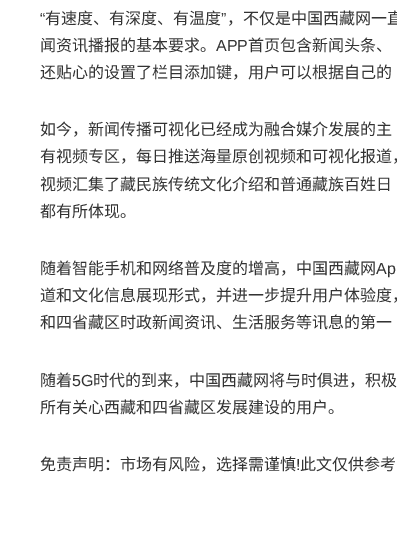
%!PS-Adobe-3.0
%%BoundingBox: 0 0 397 547
%%LanguageLevel: 3
%%Pages: 1
%%EndComments
%%BeginProlog
/setink { dup -16 bitshift 255 div exch dup -8 bitshift 255 and 255 div exch 255 and 255 div setrgbcolor } def
/usefont { [ exch dup neg 0 0 3 -1 roll 0 0 ] selectfont } def
%%EndProlog
%%BeginSetup
<< /PageSize [397 547] >> setpagedevice
%%EndSetup
%%Page: 1 1
0 547 translate 1 -1 scale
4 setmiterlimit
16#FFFFFF setink
0 0 397 547 rectfill
/LiberationSans-Regular 16 usefont
16#333333 setink
40 24 moveto (“) show
/NotoSansCJKSC-Regular 16 usefont
45 24 moveto (有速度、有深度、有温度) show
/LiberationSans-Regular 16 usefont
221 24 moveto (”) show
/NotoSansCJKSC-Regular 16 usefont
227 24 moveto (，不仅是中国西藏网一直) show
40 51 moveto (闻资讯播报的基本要求。) show
/LiberationSans-Regular 16 usefont
216 51 moveto (APP) show
/NotoSansCJKSC-Regular 16 usefont
[
    [(首页包含新闻头条、) 248 51]
    [(还贴心的设置了栏目添加键，用户可以根据自己的) 40 78]
    [(如今，新闻传播可视化已经成为融合媒介发展的主) 40 135]
    [(有视频专区，每日推送海量原创视频和可视化报道，) 40 162]
    [(视频汇集了藏民族传统文化介绍和普通藏族百姓日) 40 190]
    [(都有所体现。) 40 217]
    [(随着智能手机和网络普及度的增高，中国西藏网) 40 274]
] { aload pop moveto show } forall
/LiberationSans-Regular 16 usefont
376 274 moveto (Ap) show
/NotoSansCJKSC-Regular 16 usefont
[
    [(道和文化信息展现形式，并进一步提升用户体验度，) 40 301]
    [(和四省藏区时政新闻资讯、生活服务等讯息的第一) 40 328]
    [(随着) 40 386]
] { aload pop moveto show } forall
/LiberationSans-Regular 16 usefont
72 386 moveto (5G) show
/NotoSansCJKSC-Regular 16 usefont
[
    [(时代的到来，中国西藏网将与时俱进，积极) 93 386]
    [(所有关心西藏和四省藏区发展建设的用户。) 40 413]
    [(免责声明：市场有风险，选择需谨慎) 40 470]
] { aload pop moveto show } forall
/LiberationSans-Regular 16 usefont
296 470 moveto (!) show
/NotoSansCJKSC-Regular 16 usefont
300 470 moveto (此文仅供参考) show
showpage
%%EOF
